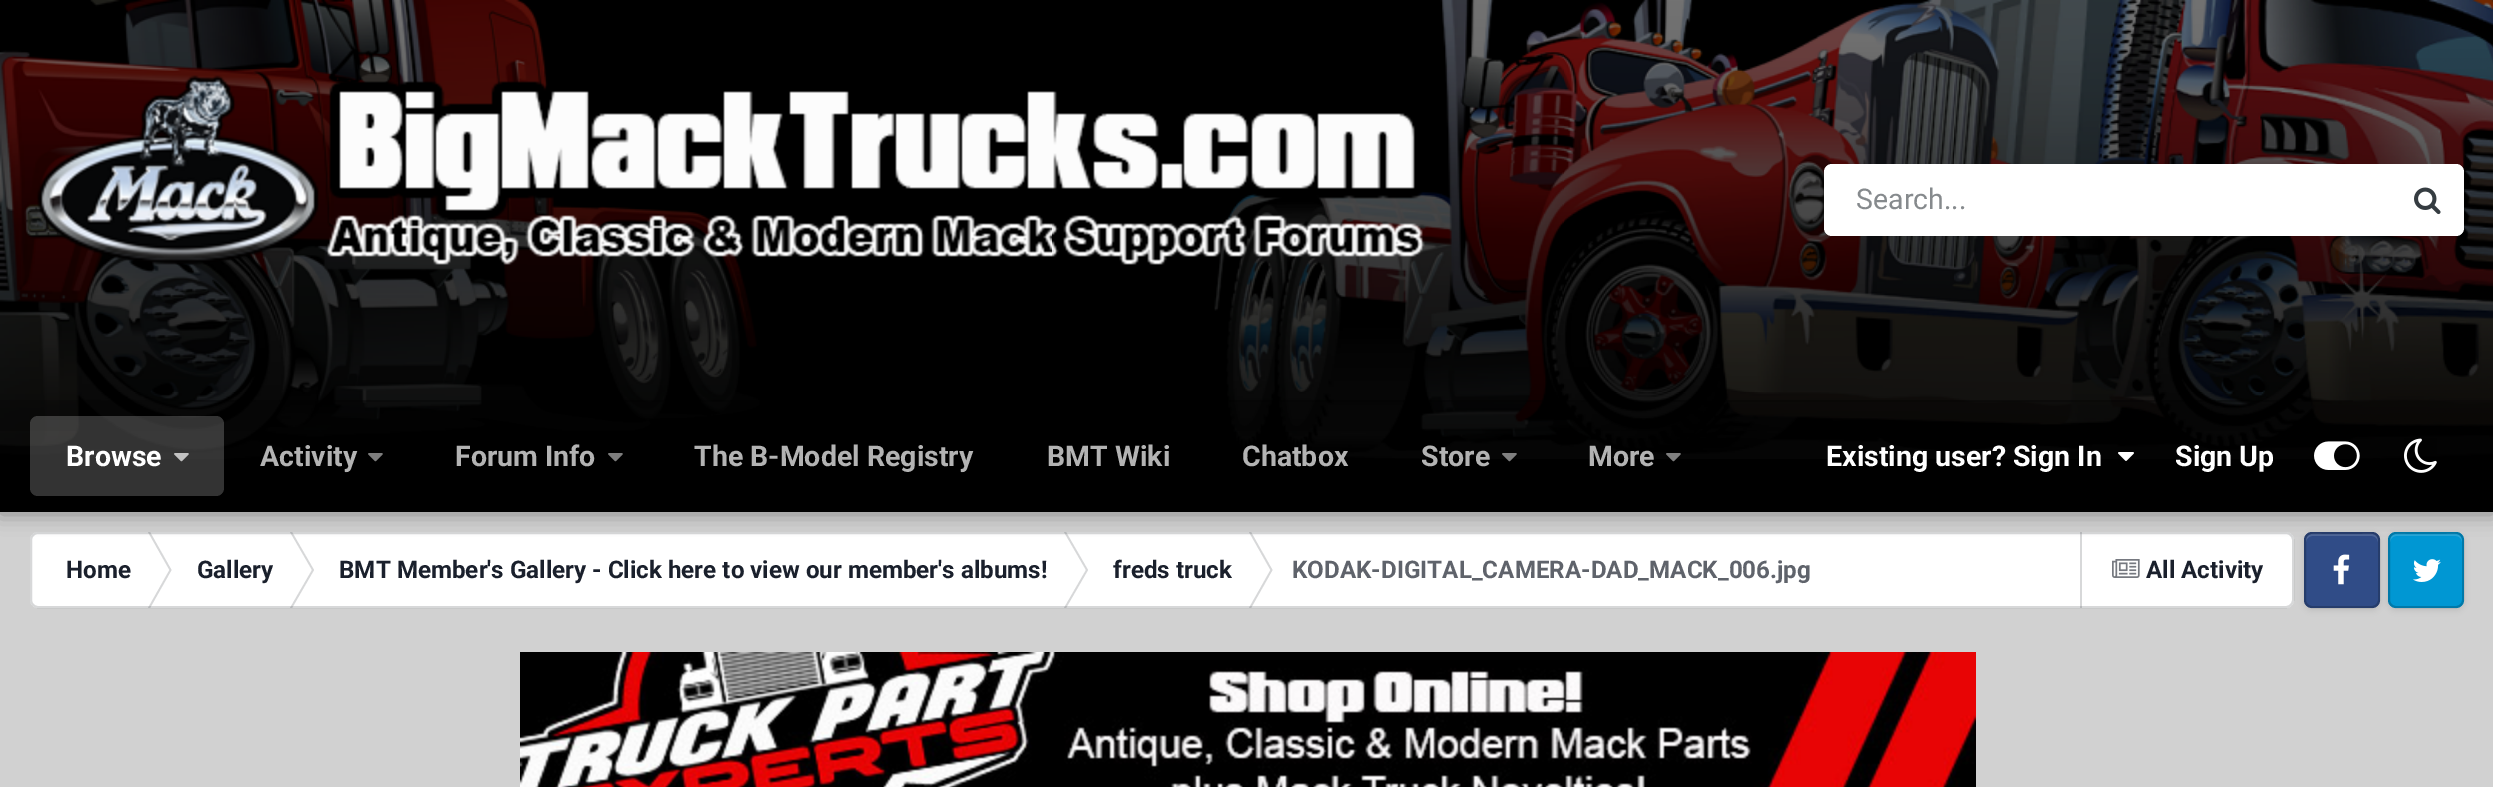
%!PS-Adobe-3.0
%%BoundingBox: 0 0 2493 787
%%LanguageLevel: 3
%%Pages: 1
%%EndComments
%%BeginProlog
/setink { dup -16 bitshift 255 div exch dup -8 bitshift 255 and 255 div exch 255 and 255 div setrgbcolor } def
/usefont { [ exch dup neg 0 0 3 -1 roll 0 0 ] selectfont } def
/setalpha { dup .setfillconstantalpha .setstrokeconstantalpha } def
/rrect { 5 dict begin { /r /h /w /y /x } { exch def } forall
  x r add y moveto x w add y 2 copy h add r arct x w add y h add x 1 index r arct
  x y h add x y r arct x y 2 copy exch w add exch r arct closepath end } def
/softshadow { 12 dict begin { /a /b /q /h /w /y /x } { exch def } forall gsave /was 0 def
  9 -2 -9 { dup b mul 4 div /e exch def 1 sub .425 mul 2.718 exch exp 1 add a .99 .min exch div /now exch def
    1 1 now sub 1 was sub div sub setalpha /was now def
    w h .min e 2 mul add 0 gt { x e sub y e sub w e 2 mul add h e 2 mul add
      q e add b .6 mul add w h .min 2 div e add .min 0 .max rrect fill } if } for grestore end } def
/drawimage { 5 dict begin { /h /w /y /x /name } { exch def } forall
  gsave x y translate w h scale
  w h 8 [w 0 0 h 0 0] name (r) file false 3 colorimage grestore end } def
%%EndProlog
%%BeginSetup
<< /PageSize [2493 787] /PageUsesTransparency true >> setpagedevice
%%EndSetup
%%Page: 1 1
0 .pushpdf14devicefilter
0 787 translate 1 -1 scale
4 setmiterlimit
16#D1D1D1 setink
0 0 2493 787 rectfill
16#FFFFFF setink
30 532 2264 76 8 rrect fill
16#D7D8D9 setink
148 532 moveto 150 532 lineto 171.5 570 lineto 169.5 570 lineto closepath fill
148 608 moveto 150 608 lineto 171.5 570 lineto 169.5 570 lineto closepath fill
290 532 moveto 292 532 lineto 314 570 lineto 312 570 lineto closepath fill
290 608 moveto 292 608 lineto 314 570 lineto 312 570 lineto closepath fill
1064 532 moveto 1066 532 lineto 1088 570 lineto 1086 570 lineto closepath fill
1064 608 moveto 1066 608 lineto 1088 570 lineto 1086 570 lineto closepath fill
1249 532 moveto 1251 532 lineto 1272.5 570 lineto 1270.5 570 lineto closepath fill
1249 608 moveto 1251 608 lineto 1272.5 570 lineto 1270.5 570 lineto closepath fill
2080 532 2 76 rectfill
(img11.raw) 2112 559 28 19 drawimage
0.2 setalpha
16#353C41 setink
2 setlinewidth
31 533 2262 74 7 rrect stroke
1 setalpha
16#000000 setink
2304 534 76 76 8 3 0.1 softshadow
16#304C87 setink
2304 532 76 76 8 rrect fill
16#4F6799 setink
2312 536 moveto 2309 536 2306 539 2306 542 curveto 2306 532 2314 534 2322 534 curveto 2362 534 lineto 2370 534 2378 532 2378 542 curveto 2378 539 2375 536 2372 536 curveto closepath fill
(img12.raw) 2333 554 17 31 drawimage
0.2 setalpha
16#000000 setink
2305 533 74 74 7 rrect stroke
1 setalpha
2388 534 76 76 8 3 0.1 softshadow
16#0097D3 setink
2388 532 76 76 8 rrect fill
16#26A7DA setink
2396 536 moveto 2393 536 2390 539 2390 542 curveto 2390 532 2398 534 2406 534 curveto 2446 534 lineto 2454 534 2462 532 2462 542 curveto 2462 539 2459 536 2456 536 curveto closepath fill
(img13.raw) 2413 559 28 23 drawimage
0.2 setalpha
16#000000 setink
2389 533 74 74 7 rrect stroke
1 setalpha
0 2 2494 512 0 10 0.35 softshadow
0 459 2493 53 rectfill
(img1.raw) 0 0 2493 459 drawimage
(img2.raw) 37 75 1388 190 drawimage
16#FFFFFF setink
1824 164 640 72 8 rrect fill
/Roboto-Regular 28.5 usefont
16#868A8D setink
1856 209 moveto (Search...) show
(img3.raw) 2414 187 27 28 drawimage
0.2 setalpha
16#000000 setink
0 400 2493 31 rectfill
194 400 2159 2 rectfill
16#FFFFFF setink
30 416 194 80 8 rrect fill
/Roboto-Bold 28.5 usefont
1 setalpha
66 466 moveto (Browse) show
(img4.raw) 174 453 15 9 drawimage
16#B3B3B3 setink
260 466 moveto (Activity) show
(img5.raw) 368 453 15 9 drawimage
455 466 moveto (Forum Info) show
(img5.raw) 608 453 15 9 drawimage
[
    [(The B-Model Registry) 694 466]
    [(BMT Wiki) 1047 466]
    [(Chatbox) 1242 466]
    [(Store) 1421 466]
] { aload pop moveto show } forall
(img6.raw) 1502 453 15 9 drawimage
1588 466 moveto (More) show
(img7.raw) 1666 453 15 9 drawimage
16#FFFFFF setink
1826 466 moveto (Existing user? Sign In) show
(img8.raw) 2118 452 16 9 drawimage
2175 466 moveto (Sign Up) show
(img9.raw) 2314 441 46 29 drawimage
(img10.raw) 2404 438 33 35 drawimage
/Roboto-Bold 24.2 usefont
16#1A202C setink
[
    [(Home) 66 578]
    [(Gallery) 197 578]
    [(BMT Member's Gallery - Click here to view our member's albums!) 339 578]
    [(freds truck) 1113 578]
] { aload pop moveto show } forall
16#5F636B setink
1292 578 moveto (KODAK-DIGITAL_CAMERA-DAD_MACK_006.jpg) show
16#1A202C setink
2146 578 moveto (All Activity) show
(img14.raw) 520 652 1456 135 drawimage
.poppdf14devicefilter showpage
%%EOF
